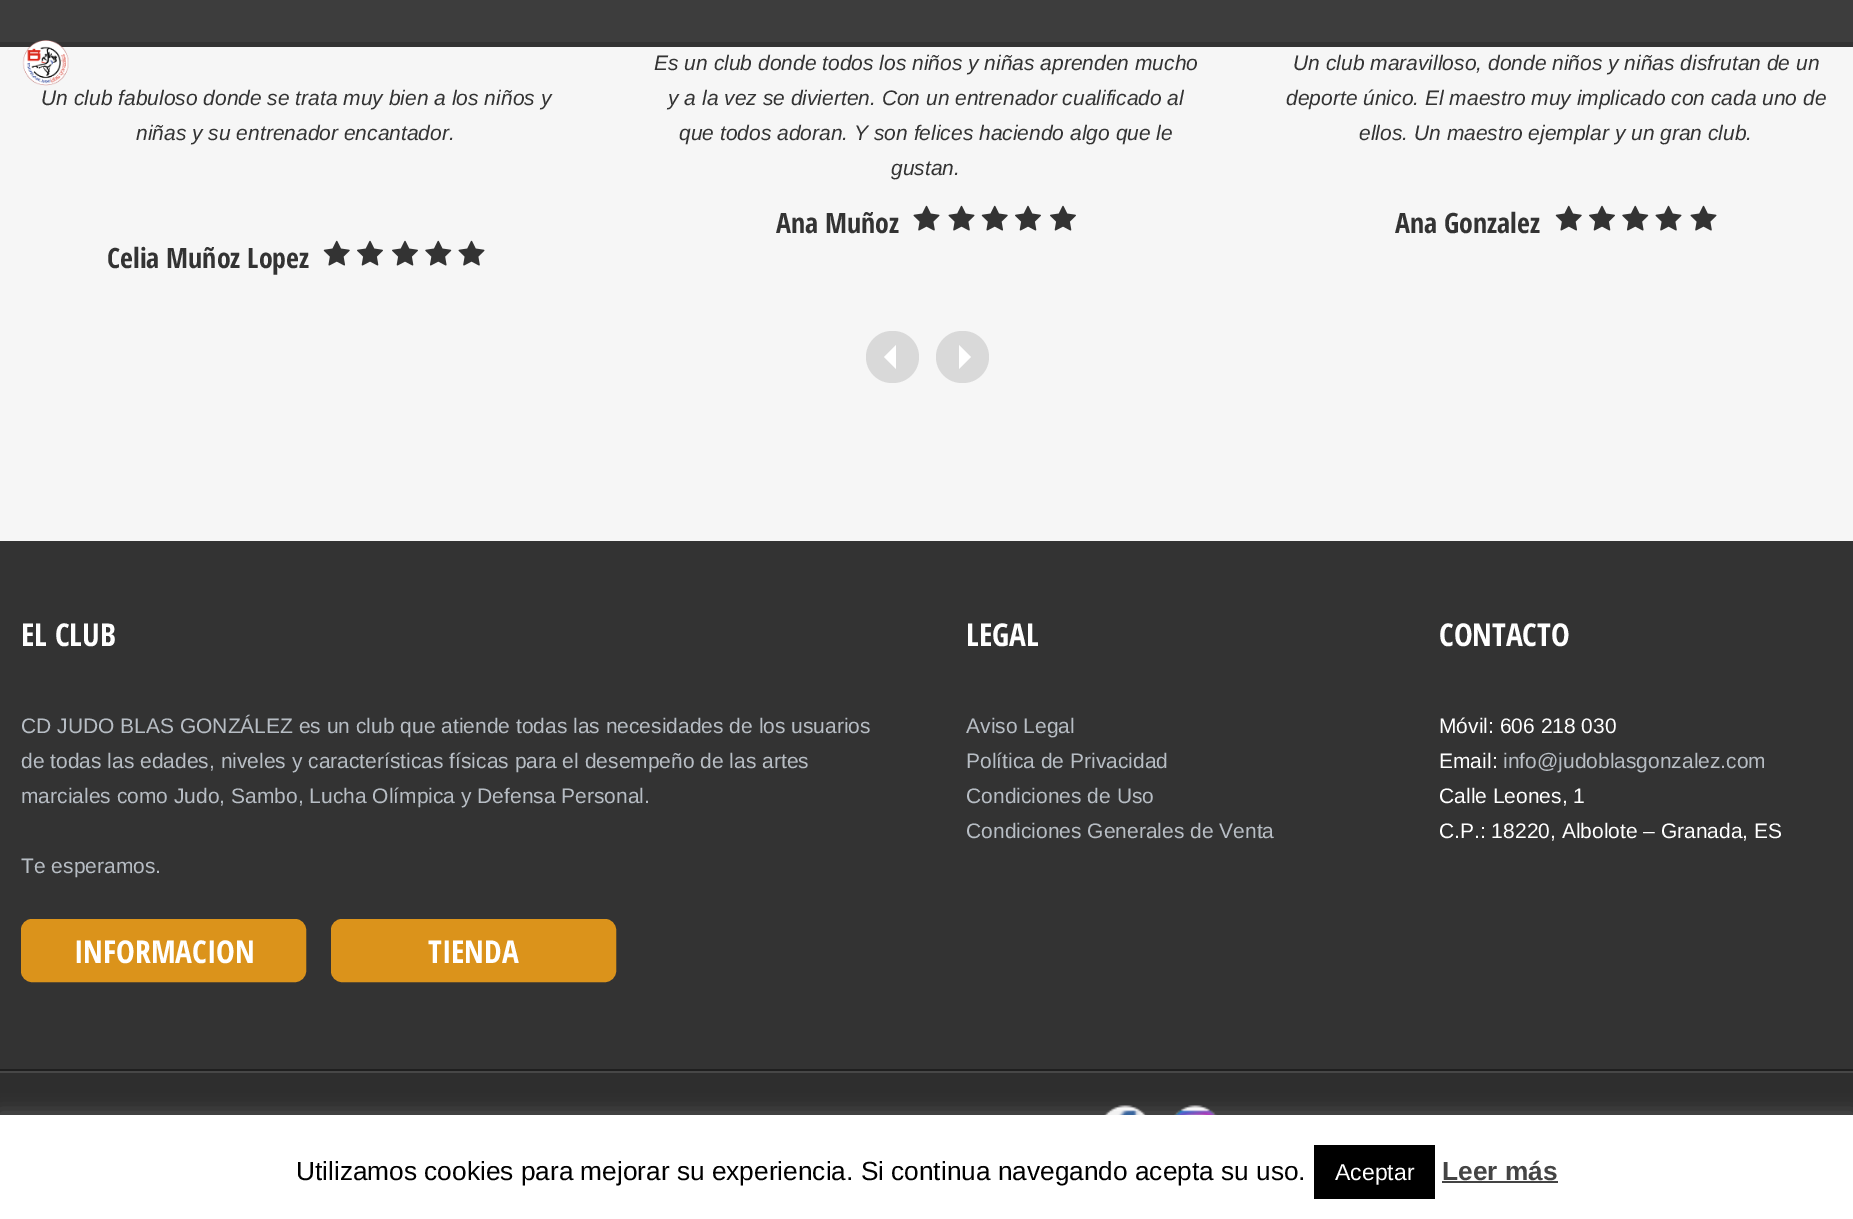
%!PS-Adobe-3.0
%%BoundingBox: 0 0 1853 1219
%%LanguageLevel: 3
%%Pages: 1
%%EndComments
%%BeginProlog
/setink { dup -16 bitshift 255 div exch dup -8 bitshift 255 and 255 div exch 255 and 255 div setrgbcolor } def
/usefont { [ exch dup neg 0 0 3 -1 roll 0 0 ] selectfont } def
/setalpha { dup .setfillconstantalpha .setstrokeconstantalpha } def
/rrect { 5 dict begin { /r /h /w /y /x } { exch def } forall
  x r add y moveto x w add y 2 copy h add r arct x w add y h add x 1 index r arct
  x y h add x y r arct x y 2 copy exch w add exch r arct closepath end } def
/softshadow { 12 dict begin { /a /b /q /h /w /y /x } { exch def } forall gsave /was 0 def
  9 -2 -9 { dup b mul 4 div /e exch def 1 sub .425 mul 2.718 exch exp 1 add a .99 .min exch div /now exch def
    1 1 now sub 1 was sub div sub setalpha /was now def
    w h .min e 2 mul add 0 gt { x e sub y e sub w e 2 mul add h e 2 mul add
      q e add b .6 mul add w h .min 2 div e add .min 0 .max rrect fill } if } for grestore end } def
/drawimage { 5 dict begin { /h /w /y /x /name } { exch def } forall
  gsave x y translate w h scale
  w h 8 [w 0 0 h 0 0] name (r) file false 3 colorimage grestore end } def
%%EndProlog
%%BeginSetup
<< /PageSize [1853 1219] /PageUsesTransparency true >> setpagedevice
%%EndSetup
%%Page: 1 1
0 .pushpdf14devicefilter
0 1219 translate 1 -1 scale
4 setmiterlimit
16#333333 setink
0 0 1853 1219 rectfill
16#3D3D3D setink
0 0 1853 42 rectfill
16#F6F6F6 setink
0 47 1853 494 rectfill
(img1.raw) 22 40 47 46 drawimage
/LiberationSans-Italic 21 usefont
16#333333 setink
41 105 moveto (Un club fabuloso donde se trata muy bien a los niños y) show
136 140 moveto (niñas y su entrenador encantador.) show
/OpenSansCondensed-Bold 28 usefont
107 268 moveto (Celia Muñoz Lopez) show
(img2.raw) 323 240 27 26 drawimage
(img3.raw) 357 240 26 26 drawimage
(img3.raw) 392 240 26 26 drawimage
(img4.raw) 425 240 27 26 drawimage
(img5.raw) 458 240 27 26 drawimage
/LiberationSans-Italic 21 usefont
[
    [(Es un club donde todos los niños y niñas aprenden mucho) 654 70]
    [(y a la vez se divierten. Con un entrenador cualificado al) 668 105]
    [(que todos adoran. Y son felices haciendo algo que le) 679 140]
    [(gustan.) 891 175]
] { aload pop moveto show } forall
/OpenSansCondensed-Bold 28 usefont
776 233 moveto (Ana Muñoz) show
(img5.raw) 913 205 27 26 drawimage
(img5.raw) 948 205 27 26 drawimage
(img2.raw) 981 205 27 26 drawimage
(img3.raw) 1015 205 26 26 drawimage
(img3.raw) 1050 205 26 26 drawimage
/LiberationSans-Italic 21 usefont
[
    [(Un club maravilloso, donde niños y niñas disfrutan de un) 1293 70]
    [(deporte único. El maestro muy implicado con cada uno de) 1286 105]
    [(ellos. Un maestro ejemplar y un gran club.) 1359 140]
] { aload pop moveto show } forall
/OpenSansCondensed-Bold 28 usefont
1395 233 moveto (Ana Gonzalez) show
(img2.raw) 1555 205 27 26 drawimage
(img3.raw) 1589 205 26 26 drawimage
(img4.raw) 1622 205 27 26 drawimage
(img5.raw) 1655 205 27 26 drawimage
(img5.raw) 1690 205 27 26 drawimage
16#D9D9D9 setink
866 331 53 52 26 rrect fill
16#FFFFFF setink
896 345 moveto 896 369 lineto 884 357 lineto closepath fill
16#D9D9D9 setink
936 331 53 52 26 rrect fill
16#FFFFFF setink
959 369 moveto 959 345 lineto 971 357 lineto closepath fill
/OpenSansCondensed-Bold 31.5 usefont
21 646 moveto (EL CLUB) show
/LiberationSans-Regular 21 usefont
16#B7BDC4 setink
[
    [(CD JUDO BLAS GONZÁLEZ es un club que atiende todas las necesidades de los usuarios) 21 733]
    [(de todas las edades, niveles y características físicas para el desempeño de las artes) 21 768]
    [(marciales como Judo, Sambo, Lucha Olímpica y Defensa Personal.) 21 803]
    [(Te esperamos.) 21 873]
] { aload pop moveto show } forall
16#DB931B setink
22 920 283 61 10 rrect gsave fill grestore
2 setlinewidth
stroke
/OpenSansCondensed-Bold 31.5 usefont
16#FFFFFF setink
74 963 moveto (INFORMACION) show
16#DB931B setink
332 920 283 61 10 rrect gsave fill grestore
stroke
16#FFFFFF setink
428 963 moveto (TIENDA) show
966 646 moveto (LEGAL) show
/LiberationSans-Regular 21 usefont
16#B7BDC4 setink
[
    [(Aviso Legal) 966 733]
    [(Política de Privacidad) 966 768]
    [(Condiciones de Uso) 966 803]
    [(Condiciones Generales de Venta) 966 838]
] { aload pop moveto show } forall
/OpenSansCondensed-Bold 31.5 usefont
16#FFFFFF setink
1439 646 moveto (CONTACTO) show
/LiberationSans-Regular 21 usefont
1439 733 moveto (Móvil: 606 218 030) show
1439 768 moveto (Email:) show
16#B7BDC4 setink
1503 768 moveto (info@judoblasgonzalez.com) show
16#FFFFFF setink
1439 803 moveto (Calle Leones, 1) show
1439 838 moveto (C.P.: 18220, Albolote – Granada, ES) show
[
    [0 1073 1853 42 16#2E2E2E]
    [0 1071 1853 2 16#474747]
    [0 1069 1853 2 16#1F1F1F]
] { aload pop setink rectfill } forall
(img6.raw) 1104 1105 43 10 drawimage
(img7.raw) 1174 1105 43 10 drawimage
16#ACABAB setink
0 1113 1853 105 0 9 0.3 softshadow
16#FFFFFF setink
0 1115 1853 104 rectfill
/LiberationSans-Regular 26.25 usefont
16#000000 setink
296 1180 moveto (Utilizamos cookies para mejorar su experiencia. Si continua navegando acepta su uso.) show
1314 1145 121 54 rectfill
/LiberationSans-Regular 23 usefont
16#FFFFFF setink
1335 1180 moveto (Aceptar) show
/LiberationSans-Bold 26.25 usefont
16#444444 setink
1442 1180 moveto (Leer más) show
1442 1181 116 2 rectfill
.poppdf14devicefilter showpage
%%EOF
